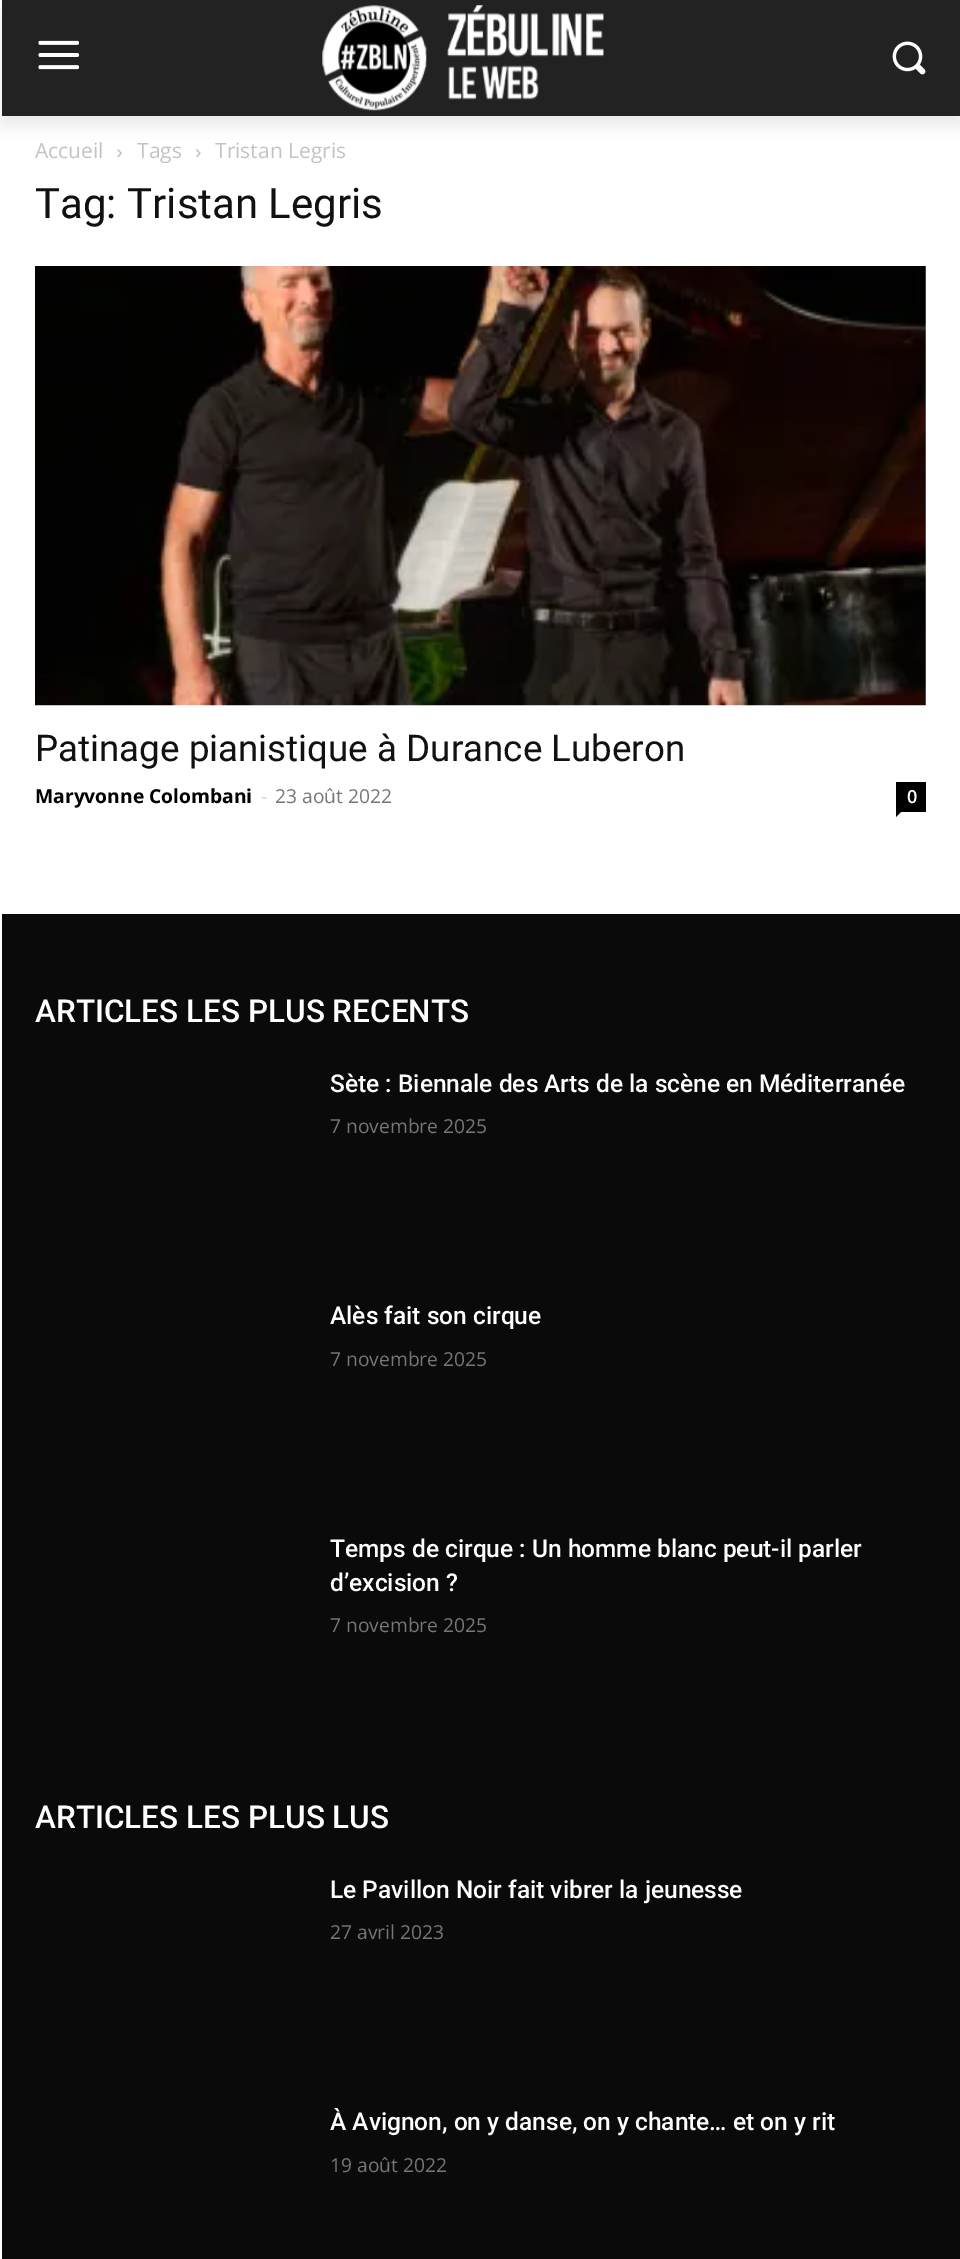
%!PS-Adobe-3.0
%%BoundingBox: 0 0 960 2259
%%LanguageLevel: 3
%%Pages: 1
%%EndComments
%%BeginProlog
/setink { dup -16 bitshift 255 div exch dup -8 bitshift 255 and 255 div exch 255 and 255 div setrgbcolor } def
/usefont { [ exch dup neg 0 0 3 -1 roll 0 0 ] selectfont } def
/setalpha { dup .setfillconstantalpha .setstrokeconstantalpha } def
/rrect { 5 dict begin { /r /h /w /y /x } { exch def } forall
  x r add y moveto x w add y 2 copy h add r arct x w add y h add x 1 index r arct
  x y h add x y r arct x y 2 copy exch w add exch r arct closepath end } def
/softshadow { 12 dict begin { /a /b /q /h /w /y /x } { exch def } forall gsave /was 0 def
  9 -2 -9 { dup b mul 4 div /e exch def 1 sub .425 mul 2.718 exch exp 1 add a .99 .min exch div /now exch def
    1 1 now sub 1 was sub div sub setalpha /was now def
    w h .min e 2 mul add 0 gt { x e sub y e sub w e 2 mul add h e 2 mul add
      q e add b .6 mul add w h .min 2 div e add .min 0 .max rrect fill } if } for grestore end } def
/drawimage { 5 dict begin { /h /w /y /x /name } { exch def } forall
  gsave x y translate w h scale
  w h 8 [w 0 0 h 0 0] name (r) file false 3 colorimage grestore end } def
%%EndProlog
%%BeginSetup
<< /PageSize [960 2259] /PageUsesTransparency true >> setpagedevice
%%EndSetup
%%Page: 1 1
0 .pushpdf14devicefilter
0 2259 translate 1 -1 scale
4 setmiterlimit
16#FFFFFF setink
0 0 960 2259 rectfill
16#222222 setink
2 0 958 116 rectfill
(img1.raw) 38 40 41 30 drawimage
(img2.raw) 322 5 282 106 drawimage
(img3.raw) 892 41 34 34 drawimage
gsave
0 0 moveto 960 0 lineto 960 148 lineto 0 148 lineto closepath 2 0 moveto 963 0 lineto 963 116 lineto 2 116 lineto closepath eoclip newpath
16#000000 setink
2 11 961 115 0 7 0.08 softshadow
grestore
/OpenSans-Regular 21 usefont
16#C3C3C3 setink
35 158 moveto (Accueil) show
(img4.raw) 117 149 5 9 drawimage
137 158 moveto (Tags) show
(img5.raw) 196 149 5 9 drawimage
215 158 moveto (Tristan Legris) show
/Roboto-Regular 42 usefont
16#111111 setink
35 218 moveto (Tag: Tristan Legris) show
(img6.raw) 35 266 891 440 drawimage
/Roboto-Regular 36.75 usefont
35 761 moveto (Patinage pianistique à Durance Luberon) show
/OpenSans-Bold 19.25 usefont
16#000000 setink
35 803 moveto (Maryvonne Colombani) show
/OpenSans-Regular 19.25 usefont
16#CCCCCC setink
261 803 moveto (-) show
16#767676 setink
275 803 moveto (23 août 2022) show
16#000000 setink
896 782 30 30 rectfill
/OpenSans-SemiBold 18 usefont
16#FFFFFF setink
907 803 moveto (0) show
16#000000 setink
896 812 moveto 901 812 lineto 896 817 lineto closepath fill
16#0A0A0A setink
2 914 958 1345 rectfill
/Roboto-Medium 31.5 usefont
16#FFFFFF setink
35 1022 moveto (ARTICLES LES PLUS RECENTS) show
/Roboto-Medium 24.5 usefont
330 1092 moveto (Sète : Biennale des Arts de la scène en Méditerranée) show
/OpenSans-Regular 19.25 usefont
16#767676 setink
330 1133 moveto (7 novembre 2025) show
/Roboto-Medium 24.5 usefont
16#FFFFFF setink
330 1324 moveto (Alès fait son cirque) show
/OpenSans-Regular 19.25 usefont
16#767676 setink
330 1366 moveto (7 novembre 2025) show
/Roboto-Medium 24.5 usefont
16#FFFFFF setink
330 1557 moveto (Temps de cirque : Un homme blanc peut-il parler) show
330 1591 moveto (d’excision ?) show
/OpenSans-Regular 19.25 usefont
16#767676 setink
330 1632 moveto (7 novembre 2025) show
/Roboto-Medium 31.5 usefont
16#FFFFFF setink
35 1828 moveto (ARTICLES LES PLUS LUS) show
/Roboto-Medium 24.5 usefont
330 1898 moveto (Le Pavillon Noir fait vibrer la jeunesse) show
/OpenSans-Regular 19.25 usefont
16#767676 setink
330 1939 moveto (27 avril 2023) show
/Roboto-Medium 24.5 usefont
16#FFFFFF setink
330 2130 moveto (À Avignon, on y danse, on y chante… et on y rit) show
/OpenSans-Regular 19.25 usefont
16#767676 setink
330 2172 moveto (19 août 2022) show
.poppdf14devicefilter showpage
%%EOF
